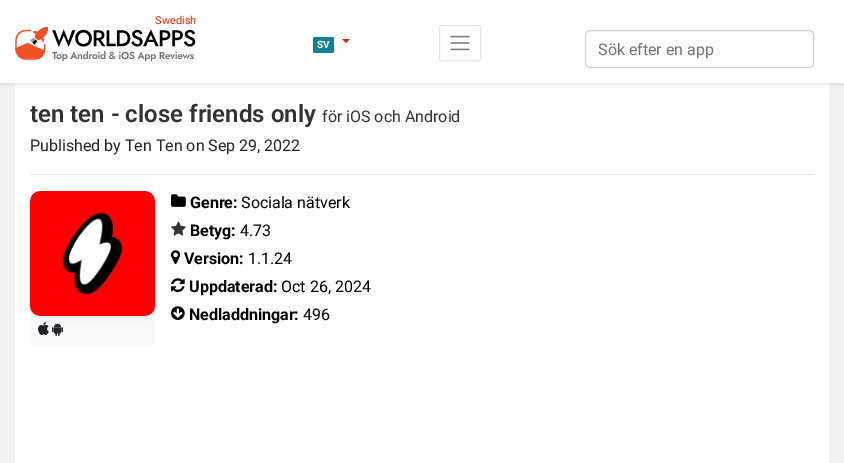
%!PS-Adobe-3.0
%%BoundingBox: 0 0 844 463
%%LanguageLevel: 3
%%Pages: 1
%%EndComments
%%BeginProlog
/setink { dup -16 bitshift 255 div exch dup -8 bitshift 255 and 255 div exch 255 and 255 div setrgbcolor } def
/usefont { [ exch dup neg 0 0 3 -1 roll 0 0 ] selectfont } def
/setalpha { dup .setfillconstantalpha .setstrokeconstantalpha } def
/rrect { 5 dict begin { /r /h /w /y /x } { exch def } forall
  x r add y moveto x w add y 2 copy h add r arct x w add y h add x 1 index r arct
  x y h add x y r arct x y 2 copy exch w add exch r arct closepath end } def
/softshadow { 12 dict begin { /a /b /q /h /w /y /x } { exch def } forall gsave /was 0 def
  9 -2 -9 { dup b mul 4 div /e exch def 1 sub .425 mul 2.718 exch exp 1 add a .99 .min exch div /now exch def
    1 1 now sub 1 was sub div sub setalpha /was now def
    w h .min e 2 mul add 0 gt { x e sub y e sub w e 2 mul add h e 2 mul add
      q e add b .6 mul add w h .min 2 div e add .min 0 .max rrect fill } if } for grestore end } def
/drawimage { 5 dict begin { /h /w /y /x /name } { exch def } forall
  gsave x y translate w h scale
  w h 8 [w 0 0 h 0 0] name (r) file false 3 colorimage grestore end } def
%%EndProlog
%%BeginSetup
<< /PageSize [844 463] /PageUsesTransparency true >> setpagedevice
%%EndSetup
%%Page: 1 1
0 .pushpdf14devicefilter
0 463 translate 1 -1 scale
4 setmiterlimit
16#F2F2F2 setink
0 0 844 463 rectfill
16#FFFFFF setink
15 83 814 380 rectfill
16#000000 setink
0 2 844 83 0 2 0.07 softshadow
16#FFFFFF setink
0 0 844 83 rectfill
/Roboto-Regular 11 usefont
16#E62500 setink
155 24 moveto (Swedish) show
(img1.raw) 15 27 181 35 drawimage
16#118292 setink
313 37 21 16 2 rrect fill
/Roboto-Bold 10 usefont
16#FFFFFF setink
317 48 moveto (SV) show
16#E62500 setink
342 39 moveto 350 39 lineto 346 43 lineto closepath fill
16#E6E6E6 setink
439.5 25.5 41 35 1.5 rrect stroke
(img2.raw) 450 35 20 16 drawimage
16#CED4DA setink
585.5 30.5 228 37 4.5 rrect stroke
/Roboto-Regular 16 usefont
16#6C757D setink
598 55 moveto (Sök efter en app) show
/Roboto-SemiBold 24 usefont
16#333333 setink
30 122 moveto (ten ten - close friends only) show
/Roboto-Regular 16 usefont
322 122 moveto (för iOS och Android) show
16#212529 setink
30 151 moveto (Published by Ten Ten on Sep 29, 2022) show
16#E6E6E6 setink
30 174 784 1 rectfill
16#F8F9FA setink
30 316 125 29 3 rrect fill
gsave
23 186 moveto 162 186 lineto 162 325 lineto 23 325 lineto closepath 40 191 moveto 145 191 lineto 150.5 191 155 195.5 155 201 curveto 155 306 lineto 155 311.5 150.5 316 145 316 curveto 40 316 lineto 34.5 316 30 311.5 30 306 curveto 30 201 lineto 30 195.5 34.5 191 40 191 curveto closepath eoclip newpath
16#000000 setink
30 193 125 125 10 2 0.07 softshadow
grestore
(img3.raw) 30 191 125 125 drawimage
(img4.raw) 38 322 11 13 drawimage
(img5.raw) 52 323 11 13 drawimage
(img6.raw) 171 194 15 13 drawimage
/Roboto-Bold 16 usefont
16#000000 setink
190 208 moveto (Genre:) show
/Roboto-Regular 16 usefont
241 208 moveto (Sociala nätverk) show
(img7.raw) 171 221 15 15 drawimage
/Roboto-Bold 16 usefont
190 236 moveto (Betyg:) show
/Roboto-Regular 16 usefont
240 236 moveto (4.73) show
(img8.raw) 171 250 10 14 drawimage
/Roboto-Bold 16 usefont
184 264 moveto (Version:) show
/Roboto-Regular 16 usefont
248 264 moveto (1.1.24) show
(img9.raw) 171 278 14 14 drawimage
/Roboto-Bold 16 usefont
189 292 moveto (Uppdaterad:) show
/Roboto-Regular 16 usefont
281 292 moveto (Oct 26, 2024) show
(img10.raw) 171 306 14 14 drawimage
/Roboto-Bold 16 usefont
189 320 moveto (Nedladdningar:) show
/Roboto-Regular 16 usefont
303 320 moveto (496) show
.poppdf14devicefilter showpage
%%EOF
